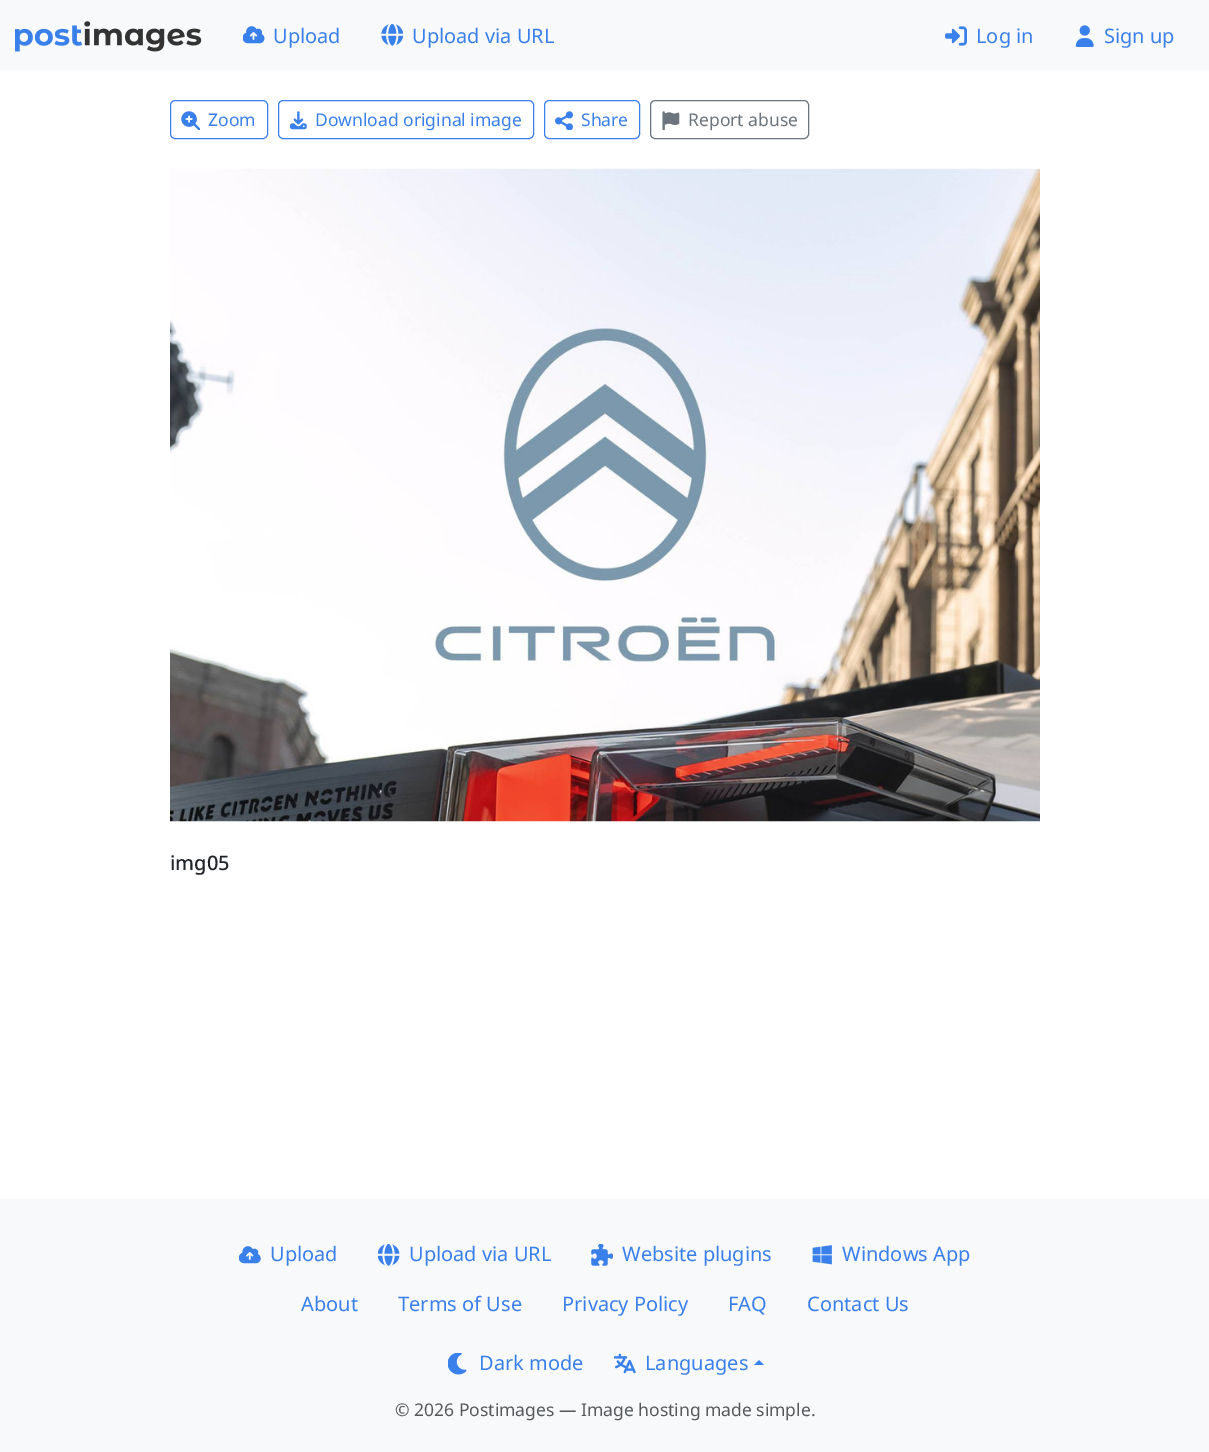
%!PS-Adobe-3.0
%%BoundingBox: 0 0 1209 1452
%%LanguageLevel: 3
%%Pages: 1
%%EndComments
%%BeginProlog
/setink { dup -16 bitshift 255 div exch dup -8 bitshift 255 and 255 div exch 255 and 255 div setrgbcolor } def
/usefont { [ exch dup neg 0 0 3 -1 roll 0 0 ] selectfont } def
/rrect { 5 dict begin { /r /h /w /y /x } { exch def } forall
  x r add y moveto x w add y 2 copy h add r arct x w add y h add x 1 index r arct
  x y h add x y r arct x y 2 copy exch w add exch r arct closepath end } def
/drawimage { 5 dict begin { /h /w /y /x /name } { exch def } forall
  gsave x y translate w h scale
  w h 8 [w 0 0 h 0 0] name (r) file false 3 colorimage grestore end } def
%%EndProlog
%%BeginSetup
<< /PageSize [1209 1452] >> setpagedevice
%%EndSetup
%%Page: 1 1
0 1452 translate 1 -1 scale
4 setmiterlimit
16#FFFFFF setink
0 0 1209 1452 rectfill
16#F8F9FA setink
0 0 1209 70 rectfill
(img1.raw) 15 21 187 31 drawimage
(img2.raw) 243 26 22 18 drawimage
/NotoSans-Regular 20 usefont
16#3A80EA setink
273 43 moveto (Upload) show
(img3.raw) 381 24 22 22 drawimage
412 43 moveto (Upload via URL) show
(img4.raw) 945 26 22 20 drawimage
976 43 moveto (Log in) show
(img5.raw) 1075 25 19 22 drawimage
1104 43 moveto (Sign up) show
170.5 100.5 97 38 4.5 rrect stroke
(img6.raw) 181 111 19 19 drawimage
/NotoSans-Regular 17.5 usefont
208 126 moveto (Zoom) show
278.5 100.5 255 38 4.5 rrect stroke
(img7.raw) 289 111 18 19 drawimage
315 126 moveto (Download original image) show
544.5 100.5 95 38 4.5 rrect stroke
(img8.raw) 555 111 18 19 drawimage
581 126 moveto (Share) show
16#6C757D setink
650.5 100.5 158 38 4.5 rrect stroke
(img9.raw) 662 111 18 19 drawimage
688 126 moveto (Report abuse) show
(img10.raw) 170 168 870 654 drawimage
/NotoSans-Medium 20 usefont
16#212529 setink
170 870 moveto (img05) show
16#F8F9FA setink
0 1199 1209 253 rectfill
(img11.raw) 239 1246 22 18 drawimage
/NotoSans-Regular 20 usefont
16#3A80EA setink
270 1261 moveto (Upload) show
(img12.raw) 378 1244 22 22 drawimage
409 1261 moveto (Upload via URL) show
(img13.raw) 591 1244 22 22 drawimage
622 1261 moveto (Website plugins) show
(img14.raw) 812 1245 20 20 drawimage
[
    [(Windows App) 842 1261]
    [(About) 301 1311]
    [(Terms of Use) 398 1311]
    [(Privacy Policy) 562 1311]
    [(FAQ) 728 1311]
    [(Contact Us) 807 1311]
] { aload pop moveto show } forall
(img15.raw) 448 1353 19 22 drawimage
479 1370 moveto (Dark mode) show
(img16.raw) 614 1353 22 21 drawimage
645 1370 moveto (Languages) show
764 1365 moveto 754 1365 lineto 759 1360 lineto closepath fill
/NotoSans-Regular 17.5 usefont
16#575A5D setink
395 1416 moveto (© 2026 Postimages — Image hosting made simple.) show
showpage
%%EOF
